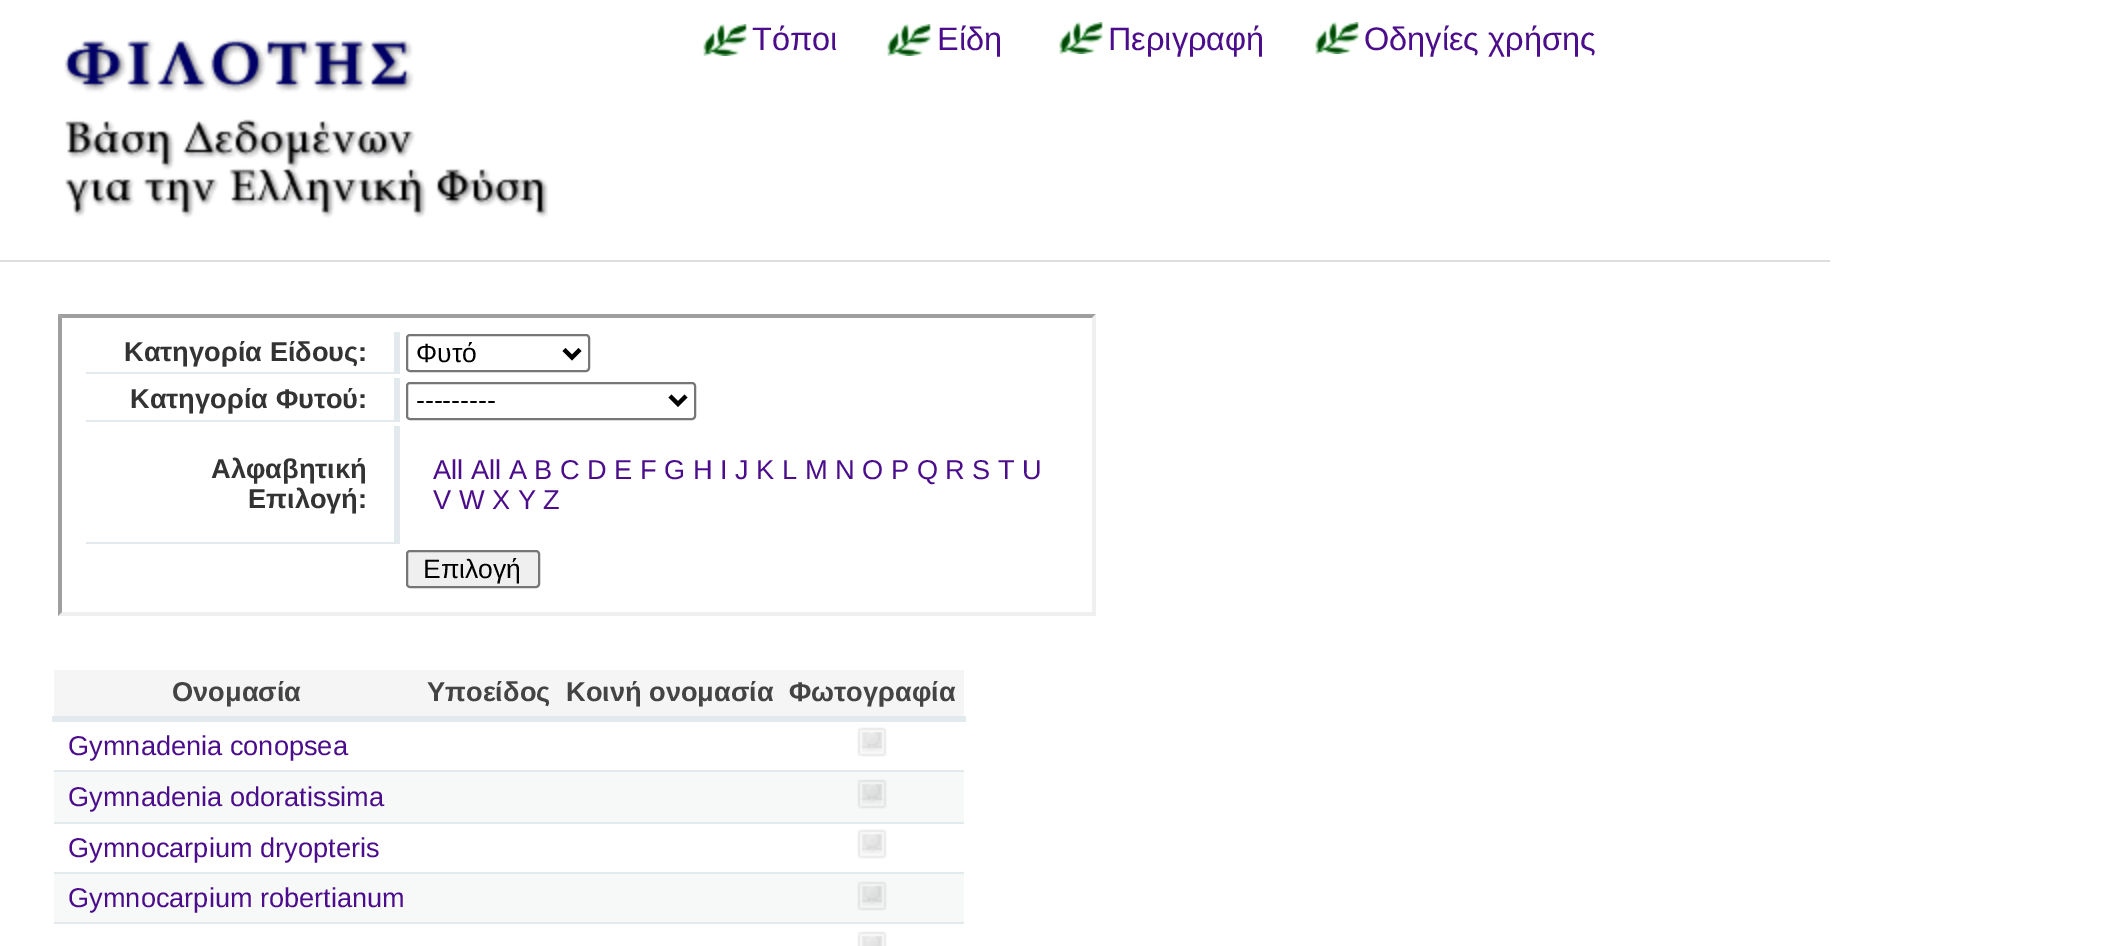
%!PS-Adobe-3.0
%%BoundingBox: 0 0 2107 946
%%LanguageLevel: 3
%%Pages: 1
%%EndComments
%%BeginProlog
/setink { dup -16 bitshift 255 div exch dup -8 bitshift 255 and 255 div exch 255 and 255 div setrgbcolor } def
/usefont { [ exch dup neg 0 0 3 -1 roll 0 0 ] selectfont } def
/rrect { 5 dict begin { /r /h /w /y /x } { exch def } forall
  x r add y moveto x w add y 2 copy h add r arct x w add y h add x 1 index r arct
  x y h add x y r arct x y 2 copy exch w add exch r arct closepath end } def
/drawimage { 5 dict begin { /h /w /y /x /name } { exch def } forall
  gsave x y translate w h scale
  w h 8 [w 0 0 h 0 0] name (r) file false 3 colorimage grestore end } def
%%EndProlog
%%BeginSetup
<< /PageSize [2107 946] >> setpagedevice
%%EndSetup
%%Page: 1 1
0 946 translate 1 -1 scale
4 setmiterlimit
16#FFFFFF setink
0 0 2107 946 rectfill
16#DDDDDD setink
0 260 1830 2 rectfill
(img1.raw) 64 38 484 180 drawimage
(img2.raw) 703 24 44 32 drawimage
/LiberationSans-Regular 32.5 usefont
16#4C0D8C setink
752 50 moveto (Τόποι) show
(img2.raw) 887 24 44 32 drawimage
937 50 moveto (Είδη) show
(img2.raw) 1059 22 44 32 drawimage
1108 50 moveto (Περιγραφή) show
(img2.raw) 1315 22 44 32 drawimage
1364 50 moveto (Οδηγίες χρήσης) show
16#9F9F9F setink
58 314 moveto 1096 314 lineto 1092 318 lineto 62 318 lineto closepath fill
16#EFEFEF setink
1096 314 moveto 1096 616 lineto 1092 612 lineto 1092 318 lineto closepath fill
1096 616 moveto 58 616 lineto 62 612 lineto 1092 612 lineto closepath fill
16#9F9F9F setink
58 616 moveto 58 314 lineto 62 318 lineto 62 612 lineto closepath fill
16#E3EAEE setink
394 332 6 42 rectfill
86 372 314 2 rectfill
/LiberationSans-Bold 27.2 usefont
16#333333 setink
124 361 moveto (Κατηγορία Είδους:) show
16#767676 setink
2 setlinewidth
407 335 182 36 3 rrect stroke
16#000000 setink
4 setlinewidth
564 349.5 moveto 572 357.5 lineto 580 349.5 lineto stroke
/LiberationSans-Regular 26.5 usefont
416 362 moveto (Φυτό) show
16#E3EAEE setink
394 378 6 44 rectfill
86 420 314 2 rectfill
/LiberationSans-Bold 27.2 usefont
16#333333 setink
130 408 moveto (Κατηγορία Φυτού:) show
16#767676 setink
2 setlinewidth
407 383 288 36 3 rrect stroke
16#000000 setink
4 setlinewidth
670 396 moveto 678 404 lineto 686 396 lineto stroke
/LiberationSans-Regular 26.5 usefont
416 409 moveto (---------) show
16#E3EAEE setink
394 426 6 118 rectfill
86 542 314 2 rectfill
/LiberationSans-Bold 27.2 usefont
16#333333 setink
211 478 moveto (Αλφαβητική) show
248 508 moveto (Επιλογή:) show
/LiberationSans-Regular 27.2 usefont
16#4C0D8C setink
433 479 moveto (All All A B C D E F G H I J K L M N O P Q R S T U) show
433 509 moveto (V W X Y Z) show
16#EFEFEF setink
407 551 132 36 3 rrect gsave fill grestore
16#767676 setink
2 setlinewidth
stroke
/LiberationSans-Regular 26.5 usefont
16#000000 setink
423 578 moveto (Επιλογή) show
16#F5F5F5 setink
54 670 910 46 rectfill
/LiberationSans-Bold 27.2 usefont
16#444444 setink
[
    [(Ονομασία) 172 701]
    [(Υποείδος) 427 701]
    [(Κοινή ονομασία) 566 701]
] { aload pop moveto show } forall
16#E3EAEE setink
52 716 914 6 rectfill
16#444444 setink
789 701 moveto (Φωτογραφία) show
16#E3EAEE setink
54 770 910 2 rectfill
(img3.raw) 857 727 30 30 drawimage
/LiberationSans-Regular 27.2 usefont
16#4C0D8C setink
68 755 moveto (Gymnadenia conopsea) show
16#E3EAEE setink
54 822 910 2 rectfill
16#F7F8F8 setink
54 772 910 50 rectfill
(img4.raw) 857 779 30 30 drawimage
16#4C0D8C setink
68 806 moveto (Gymnadenia odoratissima) show
16#E3EAEE setink
54 872 910 2 rectfill
(img3.raw) 857 829 30 30 drawimage
16#4C0D8C setink
68 857 moveto (Gymnocarpium dryopteris) show
16#E3EAEE setink
54 922 910 2 rectfill
16#F7F8F8 setink
54 874 910 48 rectfill
(img4.raw) 857 881 30 30 drawimage
16#4C0D8C setink
68 907 moveto (Gymnocarpium robertianum) show
(img5.raw) 857 931 30 15 drawimage
showpage
%%EOF
